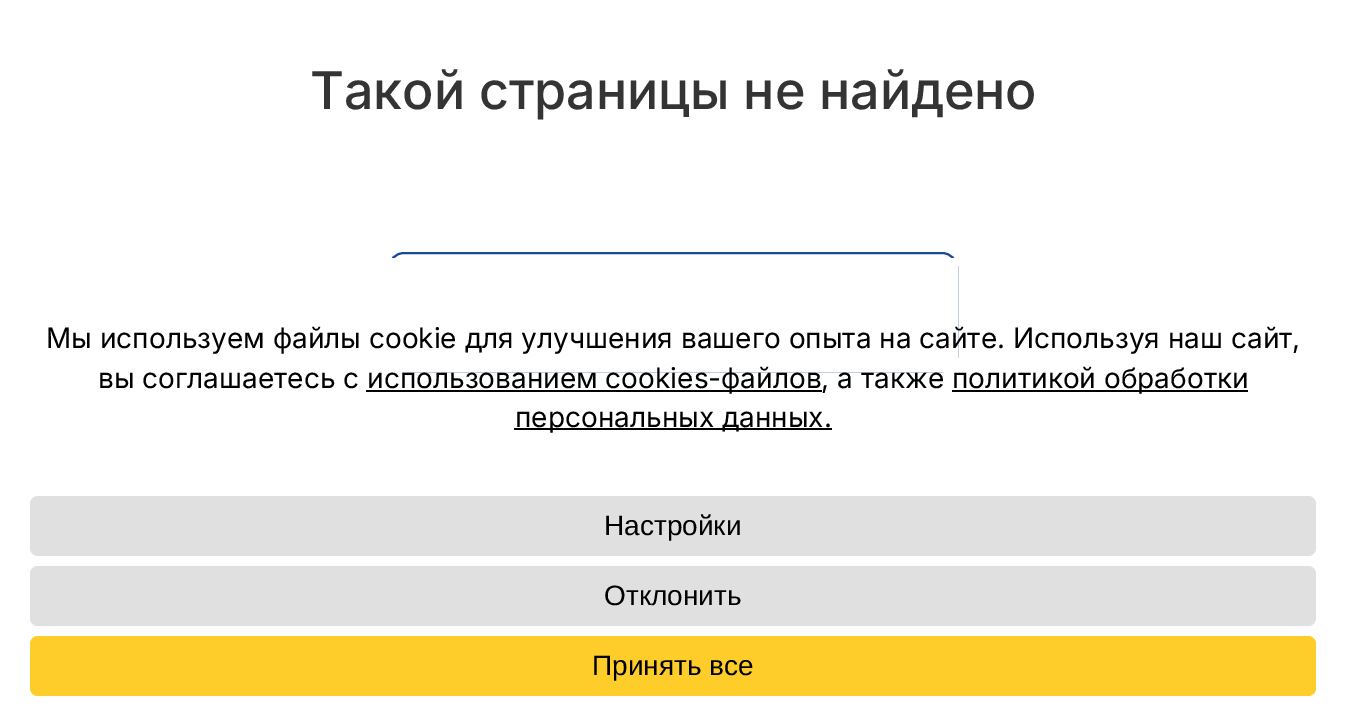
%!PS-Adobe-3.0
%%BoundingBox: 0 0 1345 716
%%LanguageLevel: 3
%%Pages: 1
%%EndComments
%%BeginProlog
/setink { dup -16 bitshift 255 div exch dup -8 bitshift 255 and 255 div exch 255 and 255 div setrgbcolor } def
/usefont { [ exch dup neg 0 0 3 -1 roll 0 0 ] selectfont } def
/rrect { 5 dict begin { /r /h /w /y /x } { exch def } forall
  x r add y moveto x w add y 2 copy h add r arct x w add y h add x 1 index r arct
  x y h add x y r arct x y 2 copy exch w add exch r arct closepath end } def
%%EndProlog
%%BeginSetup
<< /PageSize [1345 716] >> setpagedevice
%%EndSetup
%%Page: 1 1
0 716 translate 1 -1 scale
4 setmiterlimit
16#FFFFFF setink
0 0 1345 716 rectfill
/Inter-Medium 52 usefont
16#343434 setink
310 109 moveto (Такой страницы не найдено) show
16#1A4998 setink
2 setlinewidth
389 253 568 118 15 rrect stroke
16#FFFFFF setink
388 258 570 114 rectfill
/Inter-Regular 28 usefont
16#000000 setink
46 348 moveto (Мы используем файлы cookie для улучшения вашего опыта на сайте. Используя наш сайт,) show
98 388 moveto (вы соглашаетесь с) show
366 390 456 2 rectfill
367 388 moveto (использованием cookies-файлов, а также) show
952 390 296 2 rectfill
952 388 moveto (политикой обработки) show
514 428 318 2 rectfill
515 427 moveto (персональных данных.) show
16#E0E0E0 setink
30 496 1286 60 8 rrect fill
/LiberationSans-Regular 28 usefont
16#000000 setink
604 535 moveto (Настройки) show
16#E0E0E0 setink
30 566 1286 60 8 rrect fill
16#000000 setink
604 605 moveto (Отклонить) show
16#FFCD2A setink
30 636 1286 60 8 rrect fill
16#000000 setink
592 675 moveto (Принять все) show
showpage
%%EOF
